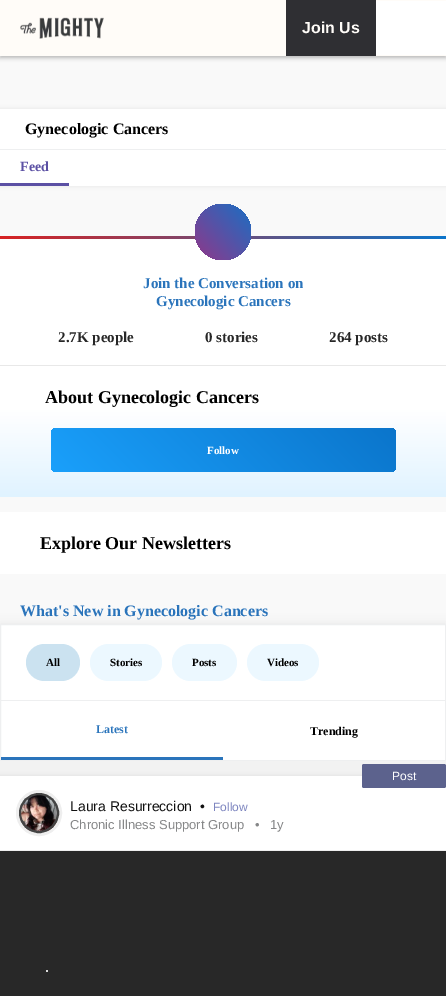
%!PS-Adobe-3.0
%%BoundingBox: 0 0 446 996
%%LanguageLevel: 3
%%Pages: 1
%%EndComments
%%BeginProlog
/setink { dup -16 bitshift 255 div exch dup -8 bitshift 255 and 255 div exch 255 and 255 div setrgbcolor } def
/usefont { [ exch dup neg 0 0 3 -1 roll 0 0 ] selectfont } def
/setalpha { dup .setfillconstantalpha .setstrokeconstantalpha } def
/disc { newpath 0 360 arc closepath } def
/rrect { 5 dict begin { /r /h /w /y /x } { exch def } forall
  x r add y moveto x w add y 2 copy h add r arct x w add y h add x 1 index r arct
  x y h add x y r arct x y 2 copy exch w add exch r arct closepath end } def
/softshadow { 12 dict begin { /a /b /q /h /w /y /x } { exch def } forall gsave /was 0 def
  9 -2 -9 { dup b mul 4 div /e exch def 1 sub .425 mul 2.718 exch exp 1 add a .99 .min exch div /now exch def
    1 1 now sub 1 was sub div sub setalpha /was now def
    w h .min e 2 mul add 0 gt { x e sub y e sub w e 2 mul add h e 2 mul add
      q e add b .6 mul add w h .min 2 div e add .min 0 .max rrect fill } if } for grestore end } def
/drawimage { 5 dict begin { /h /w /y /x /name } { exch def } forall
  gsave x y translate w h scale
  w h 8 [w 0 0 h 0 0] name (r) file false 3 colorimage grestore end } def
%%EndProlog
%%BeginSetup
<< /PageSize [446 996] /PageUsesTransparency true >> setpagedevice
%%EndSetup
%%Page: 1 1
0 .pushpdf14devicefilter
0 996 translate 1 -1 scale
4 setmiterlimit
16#F9F9F9 setink
0 0 446 996 rectfill
16#000000 setink
0 2 446 56 0 2 0.25 softshadow
16#FFFCF8 setink
0 0 446 56 rectfill
(img1.raw) 20 17 84 22 drawimage
16#2F2F33 setink
286 0 90 56 rectfill
/LiberationSans-Bold 16 usefont
16#FFFCF8 setink
302 33 moveto (Join Us) show
16#FFFFFF setink
376 1 70 54 rectfill
16#000000 setink
0 109 446 77 0 2 0.08 softshadow
16#FFFFFF setink
0 109 446 77 rectfill
/LiberationSerif-Bold 16 usefont
16#000000 setink
25 134 moveto (Gynecologic Cancers) show
16#EEEFF0 setink
0 149 446 1 rectfill
16#5B50A4 setink
0 183 69 3 rectfill
/LiberationSerif-Bold 14 usefont
20 171 moveto (Feed) show
gsave 0 239 moveto 446 239 lineto 446 497 lineto 0 497 lineto closepath clip newpath
<< /ShadingType 2 /ColorSpace /DeviceRGB /Coords [223 239 223 515] /Extend [true true] /Function << /FunctionType 3 /Domain [0 1] /Functions [<< /FunctionType 2 /Domain [0 1] /C0 [1 1 1] /C1 [1 1 1] /N 1 >> << /FunctionType 2 /Domain [0 1] /C0 [1 1 1] /C1 [0.851 0.941 1] /N 1 >>] /Bounds [0.62] /Encode [0 1 0 1] >> >> shfill grestore
(img2.raw) 0 236 446 3 drawimage
16#E8E8E8 setink
0 365 446 1 rectfill
gsave 223 232 28 disc clip newpath
<< /ShadingType 2 /ColorSpace /DeviceRGB /Coords [194 259 259 199] /Extend [true true] /Function << /FunctionType 3 /Domain [0 1] /Functions [<< /FunctionType 2 /Domain [0 1] /C0 [0.537 0.231 0.553] /C1 [0.537 0.231 0.553] /N 1 >> << /FunctionType 2 /Domain [0 1] /C0 [0.537 0.231 0.553] /C1 [0.043 0.459 0.796] /N 1 >>] /Bounds [0.06] /Encode [0 1 0 1] >> >> shfill grestore
/LiberationSerif-Bold 15 usefont
16#2A74BB setink
143 288 moveto (Join the Conversation on) show
156 306 moveto (Gynecologic Cancers) show
16#272727 setink
[
    [(2.7K people) 58 342]
    [(0 stories) 205 342]
    [(264 posts) 329 342]
] { aload pop moveto show } forall
/LiberationSerif-Bold 18 usefont
16#000000 setink
45 403 moveto (About Gynecologic Cancers) show
gsave 51 428 345 44 5 rrect clip newpath
<< /ShadingType 2 /ColorSpace /DeviceRGB /Coords [126 547 321 353] /Extend [true true] /Function << /FunctionType 2 /Domain [0 1] /C0 [0.102 0.627 0.984] /C1 [0.043 0.459 0.796] /N 1 >> >> shfill grestore
/LiberationSerif-Bold 11 usefont
16#FFFFFF setink
207 454 moveto (Follow) show
0 512 446 62 rectfill
/LiberationSerif-Bold 18 usefont
16#000000 setink
40 549 moveto (Explore Our Newsletters) show
/LiberationSerif-Bold 16 usefont
16#2A74BB setink
20 616 moveto (What's New in Gynecologic Cancers) show
16#000000 setink
0 624 446 137 0 5 0.07 softshadow
16#FFFFFF setink
0.5 624.5 moveto 445.5 624.5 lineto 445.5 760.5 lineto 0.5 760.5 lineto closepath gsave fill grestore
16#EEEFF0 setink
stroke
16#CBE2F0 setink
26 644 54 37 18.5 rrect fill
/LiberationSerif-Bold 11 usefont
16#000000 setink
46 666 moveto (All) show
16#ECF8FF setink
90 644 72 37 18.5 rrect fill
16#000000 setink
110 666 moveto (Stories) show
16#ECF8FF setink
172 644 65 37 18.5 rrect fill
16#000000 setink
192 666 moveto (Posts) show
16#ECF8FF setink
247 644 72 37 18.5 rrect fill
16#000000 setink
267 666 moveto (Videos) show
16#EEEFF0 setink
1 700 444 1 rectfill
16#2A74BB setink
1 757 222 3 rectfill
/LiberationSerif-Bold 12 usefont
96 733 moveto (Latest) show
16#000000 setink
310 735 moveto (Trending) show
16#F2F2F2 setink
0 761 446 15 rectfill
16#000000 setink
0 776 446 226 0 2 0.08 softshadow
16#FFFFFF setink
0 776 446 74 rectfill
16#5C628D setink
362 764 84 24 2 rrect fill
/LiberationSans-Regular 12 usefont
16#FFFFFF setink
392 780 moveto (Post) show
16#EEEEEE setink
3 setlinewidth
39 813 21.5 disc stroke
(img3.raw) 21 795 36 36 drawimage
16#444444 setink
2 setlinewidth
39 813 19 disc stroke
/LiberationSans-Regular 14 usefont
16#111111 setink
70 811 moveto (Laura Resurreccion) show
200 811 moveto (•) show
/LiberationSans-Regular 12 usefont
16#7D85BF setink
213 811 moveto (Follow) show
/LiberationSans-Regular 13 usefont
16#868788 setink
[
    [(Chronic Illness Support Group) 70 829]
    [(•) 255 829]
    [(1y) 270 829]
] { aload pop moveto show } forall
[
    [0 850 446 1 16#EEEEEE]
    [0 851 446 145 16#282828]
    [46 970 2 2 16#DBDBDB]
] { aload pop setink rectfill } forall
.poppdf14devicefilter showpage
%%EOF
